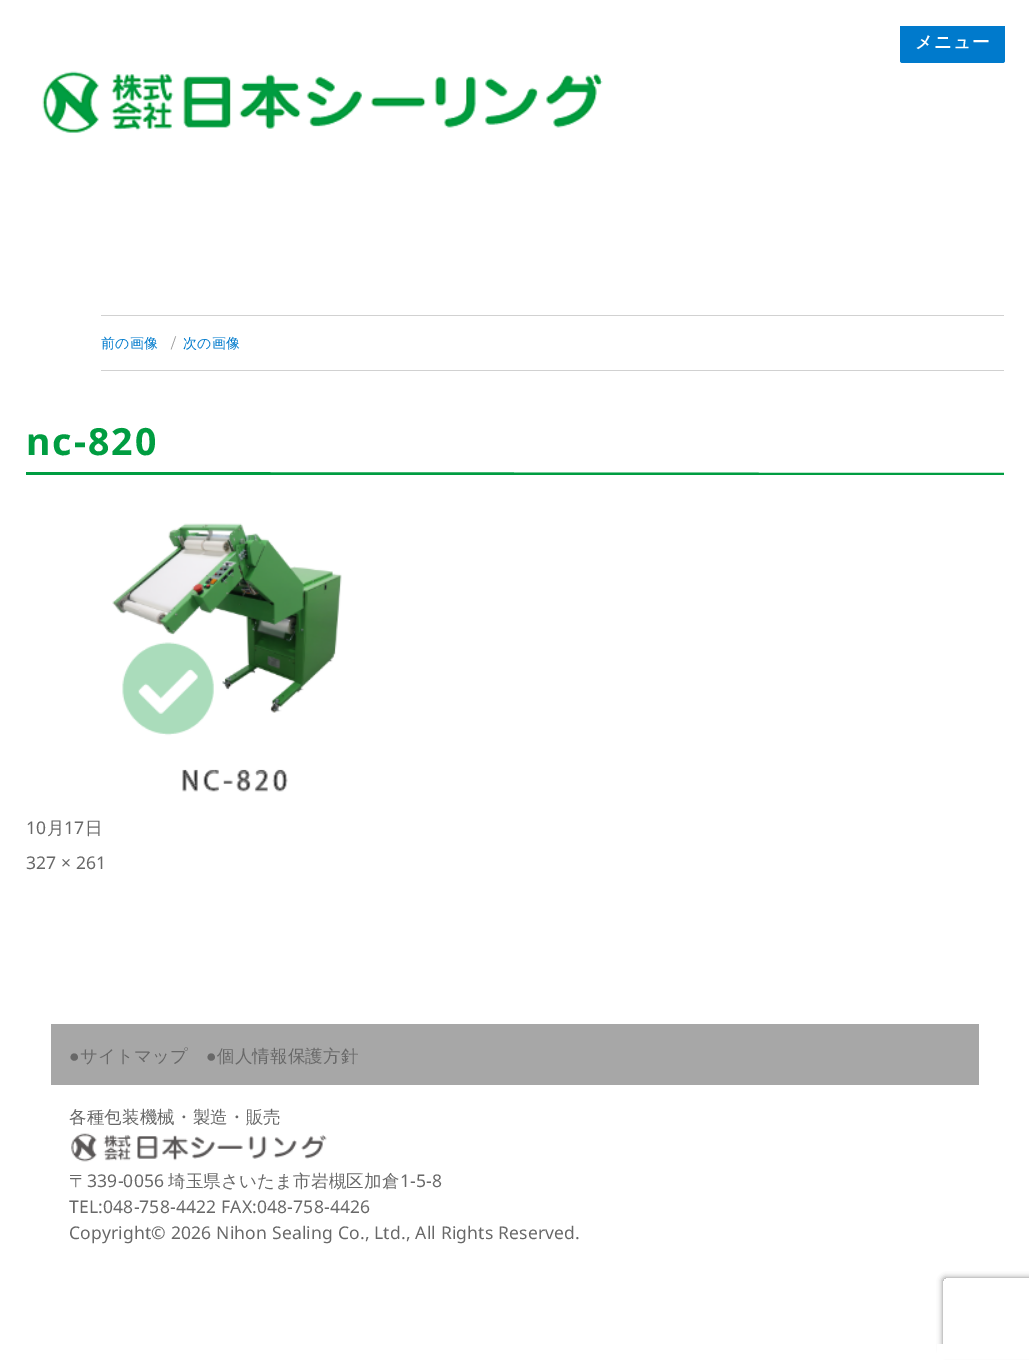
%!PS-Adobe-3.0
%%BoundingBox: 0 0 1029 1369
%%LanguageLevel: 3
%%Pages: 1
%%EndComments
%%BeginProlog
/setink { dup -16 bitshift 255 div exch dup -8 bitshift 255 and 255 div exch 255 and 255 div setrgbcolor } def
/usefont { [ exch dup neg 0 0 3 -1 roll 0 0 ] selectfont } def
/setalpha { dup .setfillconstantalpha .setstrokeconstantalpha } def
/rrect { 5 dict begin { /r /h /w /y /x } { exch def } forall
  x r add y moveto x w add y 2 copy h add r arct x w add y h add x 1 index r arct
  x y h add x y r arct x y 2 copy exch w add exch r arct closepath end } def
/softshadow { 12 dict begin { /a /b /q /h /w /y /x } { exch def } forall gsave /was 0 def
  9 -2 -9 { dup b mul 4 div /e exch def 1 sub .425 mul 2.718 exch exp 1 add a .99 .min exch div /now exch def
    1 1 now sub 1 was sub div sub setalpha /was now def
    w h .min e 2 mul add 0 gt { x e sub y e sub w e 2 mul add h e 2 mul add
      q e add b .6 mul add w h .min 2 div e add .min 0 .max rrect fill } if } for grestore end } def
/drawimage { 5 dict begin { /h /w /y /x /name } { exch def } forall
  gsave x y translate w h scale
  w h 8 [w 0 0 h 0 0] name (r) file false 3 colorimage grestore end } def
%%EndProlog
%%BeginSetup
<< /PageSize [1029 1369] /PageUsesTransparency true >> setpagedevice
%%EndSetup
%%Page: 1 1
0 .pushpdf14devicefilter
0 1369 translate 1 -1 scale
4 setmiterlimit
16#FFFFFF setink
0 0 1029 1369 rectfill
16#007ACC setink
900 19 105 44 2.5 rrect fill
16#FFFFFF setink
900 19 105 7 rectfill
/WenQuanYiZenHei-Bold 17.5 usefont
915 48 moveto 1 0 (メニュー) ashow
(img1.raw) 42 71 561 62 drawimage
16#D1D1D1 setink
101 315 903 1 rectfill
101 370 903 1 rectfill
/WenQuanYiZenHei-Medium 14 usefont
16#007ACC setink
101 348 moveto 0.17 0 (前の画像) ashow
/Montserrat-Regular 14 usefont
16#959595 setink
171 348 moveto 0.17 0 (/) ashow
/WenQuanYiZenHei-Medium 14 usefont
16#007ACC setink
183 348 moveto 0.17 0 (次の画像) ashow
16#009D41 setink
26 472 moveto 1004 473 lineto 1004 475 lineto 26 475 lineto closepath fill
/NotoSans-Bold 37.5 usefont
26 455 moveto 2 0 (nc-820) ashow
(img2.raw) 112 523 230 269 drawimage
/NotoSans-Regular 17.5 usefont
16#686868 setink
26 834 moveto 0.17 0 (10) ashow
/WenQuanYiZenHei-Medium 17.5 usefont
47 834 moveto 0.17 0 (月) ashow
/NotoSans-Regular 17.5 usefont
64 834 moveto 0.17 0 (17) ashow
/WenQuanYiZenHei-Medium 17.5 usefont
85 834 moveto 0.17 0 (日) ashow
/NotoSans-Regular 17.5 usefont
26 869 moveto 0.17 0 (327 × 261) ashow
16#A7A7A7 setink
51 1024 928 61 rectfill
/LiberationSans-Regular 17.5 usefont
16#686868 setink
69 1062 moveto 0.17 0 (●) ashow
/WenQuanYiZenHei-Medium 17.5 usefont
80 1062 moveto 0.17 0 (サイトマップ) ashow
/LiberationSans-Regular 17.5 usefont
206 1062 moveto 0.17 0 (●) ashow
/WenQuanYiZenHei-Medium 17.5 usefont
217 1062 moveto 0.17 0 (個人情報保護方針) ashow
69 1123 moveto 0.17 0 (各種包装機械・製造・販売) ashow
(img3.raw) 71 1133 256 29 drawimage
69 1187 moveto 0.17 0 (〒) ashow
/NotoSans-Regular 17.5 usefont
87 1187 moveto 0.17 0 (339-0056) ashow
/WenQuanYiZenHei-Medium 17.5 usefont
168 1187 moveto 0.17 0 (埼玉県さいたま市岩槻区加倉) ashow
/NotoSans-Regular 17.5 usefont
400 1187 moveto 0.17 0 (1-5-8) ashow
69 1213 moveto 0.17 0 (TEL:048-758-4422 FAX:048-758-4426) ashow
69 1239 moveto 0.17 0 (Copyright© 2026 Nihon Sealing Co., Ltd., All Rights Reserved.) ashow
gsave
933 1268 moveto 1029 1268 lineto 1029 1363 lineto 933 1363 lineto closepath 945.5 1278 moveto 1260.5 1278 lineto 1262 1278 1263 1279 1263 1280.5 curveto 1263 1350.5 lineto 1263 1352 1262 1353 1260.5 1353 curveto 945.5 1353 lineto 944 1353 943 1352 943 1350.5 curveto 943 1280.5 lineto 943 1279 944 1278 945.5 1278 curveto closepath eoclip newpath
16#808080 setink
943 1278 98 75 2.5 3 1 softshadow
grestore
16#FFFFFF setink
937 1344 92 15 rectfill
.poppdf14devicefilter showpage
%%EOF
